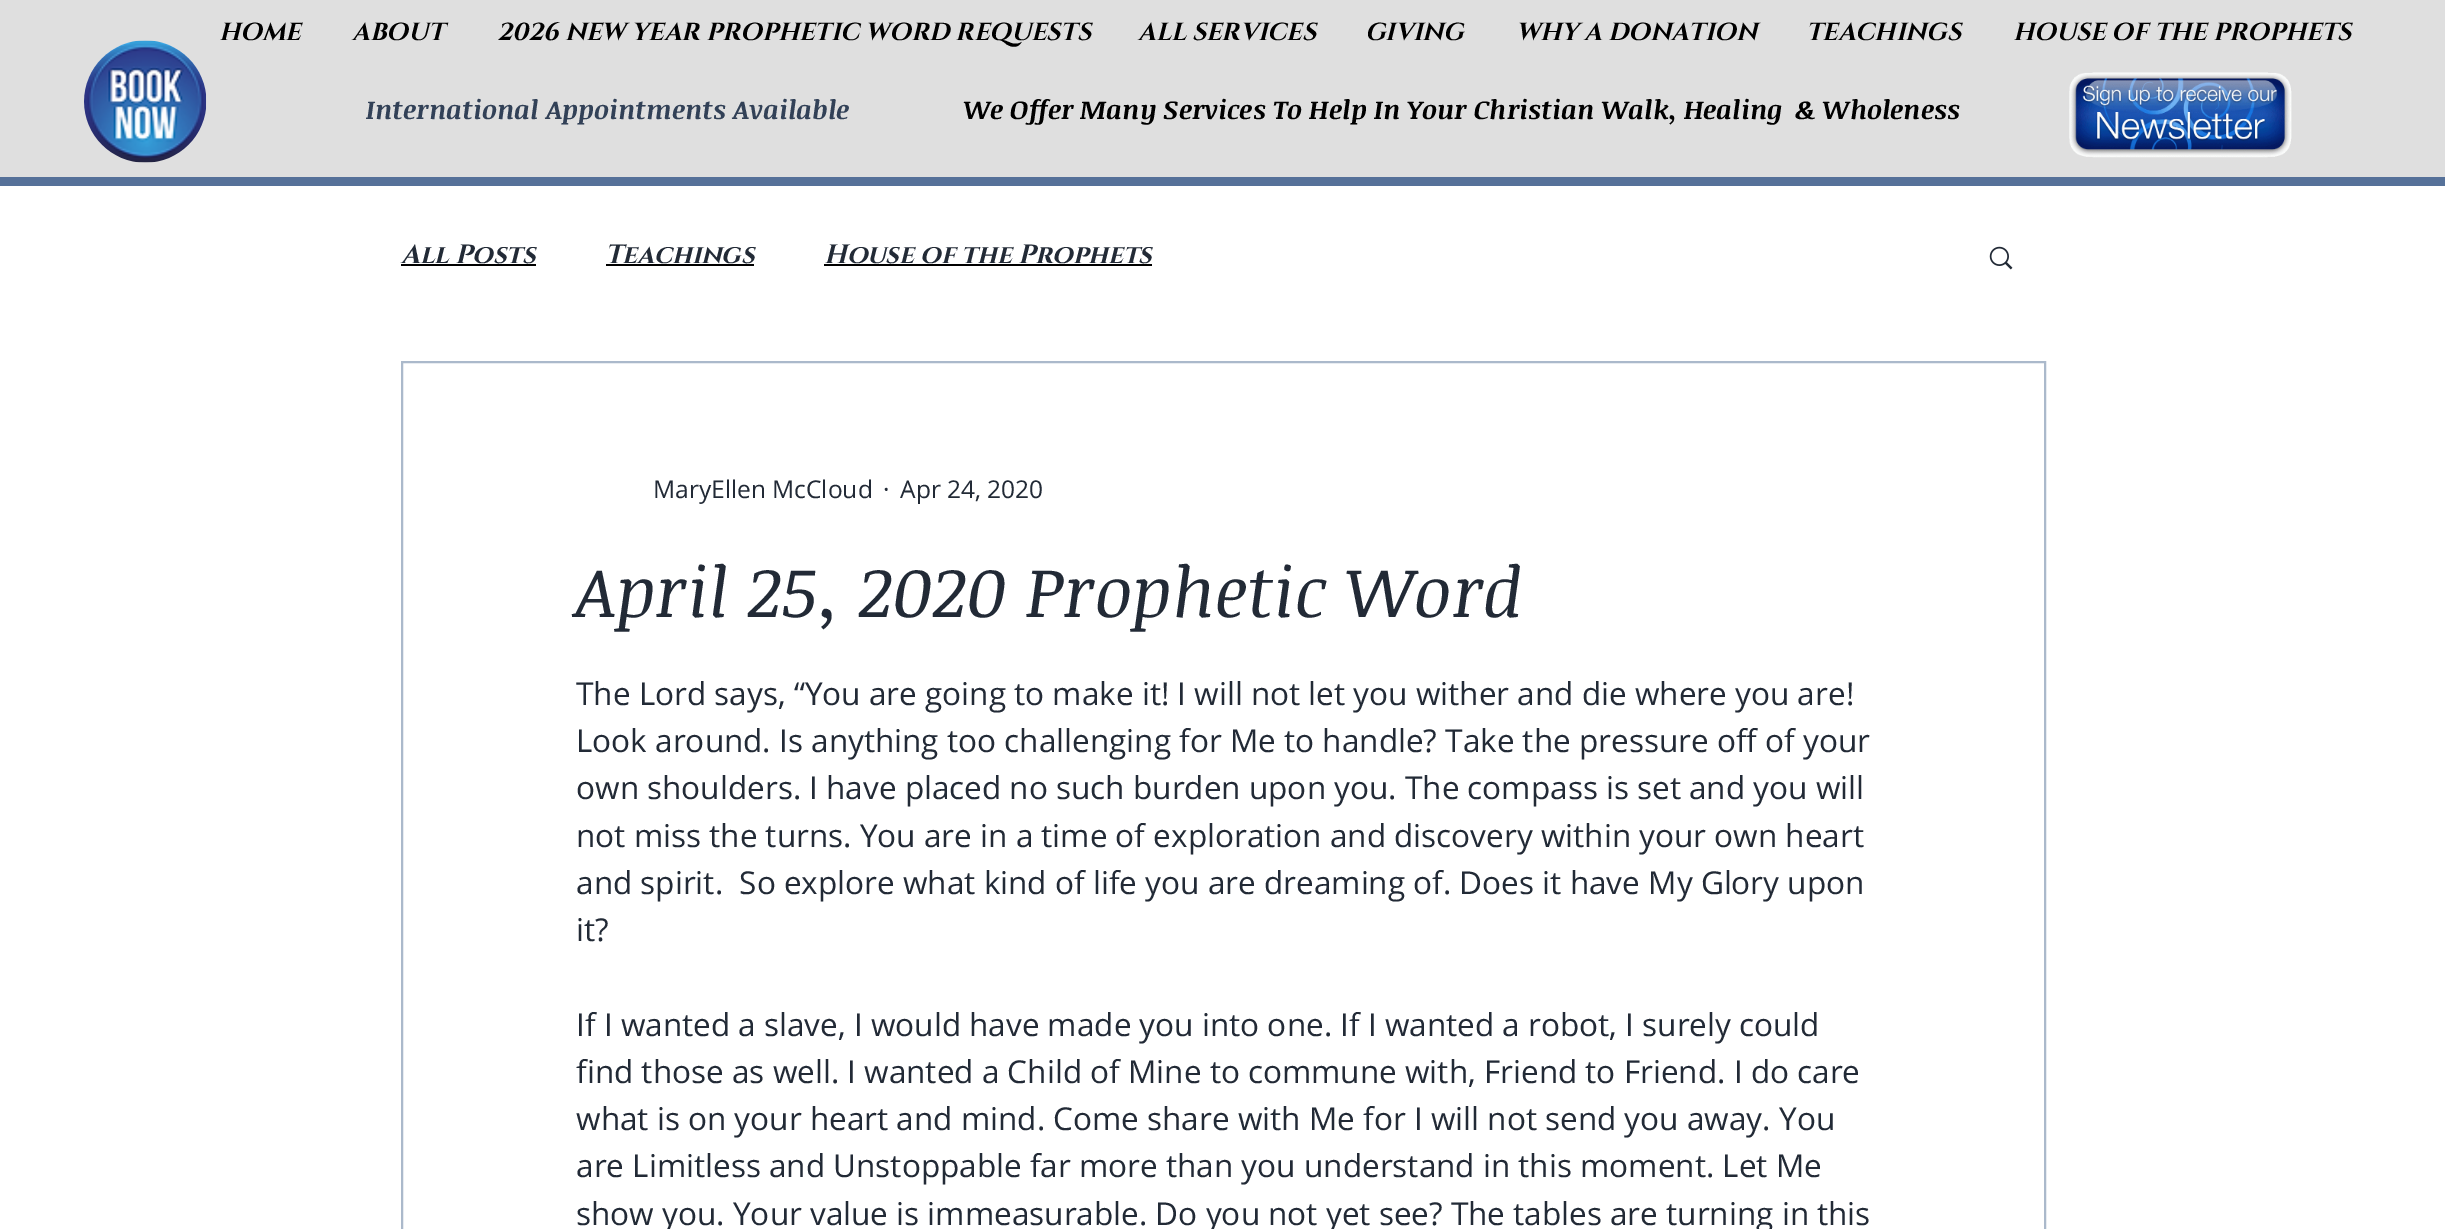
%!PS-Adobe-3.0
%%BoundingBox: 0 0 2445 1229
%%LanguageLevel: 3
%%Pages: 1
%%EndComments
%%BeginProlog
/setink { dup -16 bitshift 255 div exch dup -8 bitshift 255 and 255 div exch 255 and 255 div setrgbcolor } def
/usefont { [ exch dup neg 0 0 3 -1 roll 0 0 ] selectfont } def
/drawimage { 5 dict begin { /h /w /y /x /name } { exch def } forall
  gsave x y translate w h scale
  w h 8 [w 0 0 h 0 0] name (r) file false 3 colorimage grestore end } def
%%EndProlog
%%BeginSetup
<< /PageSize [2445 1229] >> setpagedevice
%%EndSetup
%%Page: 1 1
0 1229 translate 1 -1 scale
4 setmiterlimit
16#FFFFFF setink
0 0 2445 1229 rectfill
16#DFDFDF setink
0 0 2445 177 rectfill
16#567199 setink
0 177 2445 9 rectfill
/Cinzel-BoldItalic 24.5 usefont
16#000000 setink
[
    [(HOME) 219 40]
    [(ABOUT) 352 40]
    [(2026 NEW YEAR PROPHETIC WORD REQUESTS) 497 40]
    [(ALL SERVICES) 1138 40]
    [(GIVING) 1365 40]
    [(WHY A DONATION) 1516 40]
    [(TEACHINGS) 1806 40]
    [(HOUSE OF THE PROPHETS) 2013 40]
] { aload pop moveto show } forall
(img1.raw) 84 40 123 123 drawimage
/NoticiaText-BoldItalic 26.25 usefont
16#324157 setink
366 119 moveto (International Appointments Available) show
16#000000 setink
963 119 moveto (We Offer Many Services To Help In Your Christian Walk, Healing  & Wholeness) show
(img2.raw) 2069 72 223 86 drawimage
/Cinzel-BoldItalic 26.25 usefont
16#222A36 setink
401 263 moveto (All Posts) show
16#000000 setink
401 264 135 2 rectfill
16#222A36 setink
605 263 moveto (Teachings) show
16#000000 setink
606 264 148 2 rectfill
16#222A36 setink
824 263 moveto (House of the Prophets) show
16#000000 setink
824 264 328 2 rectfill
(img3.raw) 1989 246 24 24 drawimage
16#ABB9CB setink
2 setlinewidth
402 362 1643 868 rectstroke
/OpenSans-Regular 24.5 usefont
16#222A36 setink
[
    [(MaryEllen McCloud) 653 498]
    [(·) 883 498]
    [(Apr 24, 2020) 900 498]
] { aload pop moveto show } forall
/NoticiaText-Italic 70 usefont
576 617 moveto (April 25, 2020 Prophetic Word) show
/OpenSans-Regular 31.5 usefont
[
    [(The Lord says, “You are going to make it! I will not let you wither and die where you are!) 576 705]
    [(Look around. Is anything too challenging for Me to handle? Take the pressure off of your) 576 752]
    [(own shoulders. I have placed no such burden upon you. The compass is set and you will) 576 799]
    [(not miss the turns. You are in a time of exploration and discovery within your own heart) 576 847]
    [(and spirit.  So explore what kind of life you are dreaming of. Does it have My Glory upon) 576 894]
    [(it?) 576 941]
    [(If I wanted a slave, I would have made you into one. If I wanted a robot, I surely could) 576 1036]
    [(find those as well. I wanted a Child of Mine to commune with, Friend to Friend. I do care) 576 1083]
    [(what is on your heart and mind. Come share with Me for I will not send you away. You) 576 1130]
    [(are Limitless and Unstoppable far more than you understand in this moment. Let Me) 576 1177]
    [(show you. Your value is immeasurable. Do you not yet see? The tables are turning in this) 576 1225]
] { aload pop moveto show } forall
showpage
%%EOF
